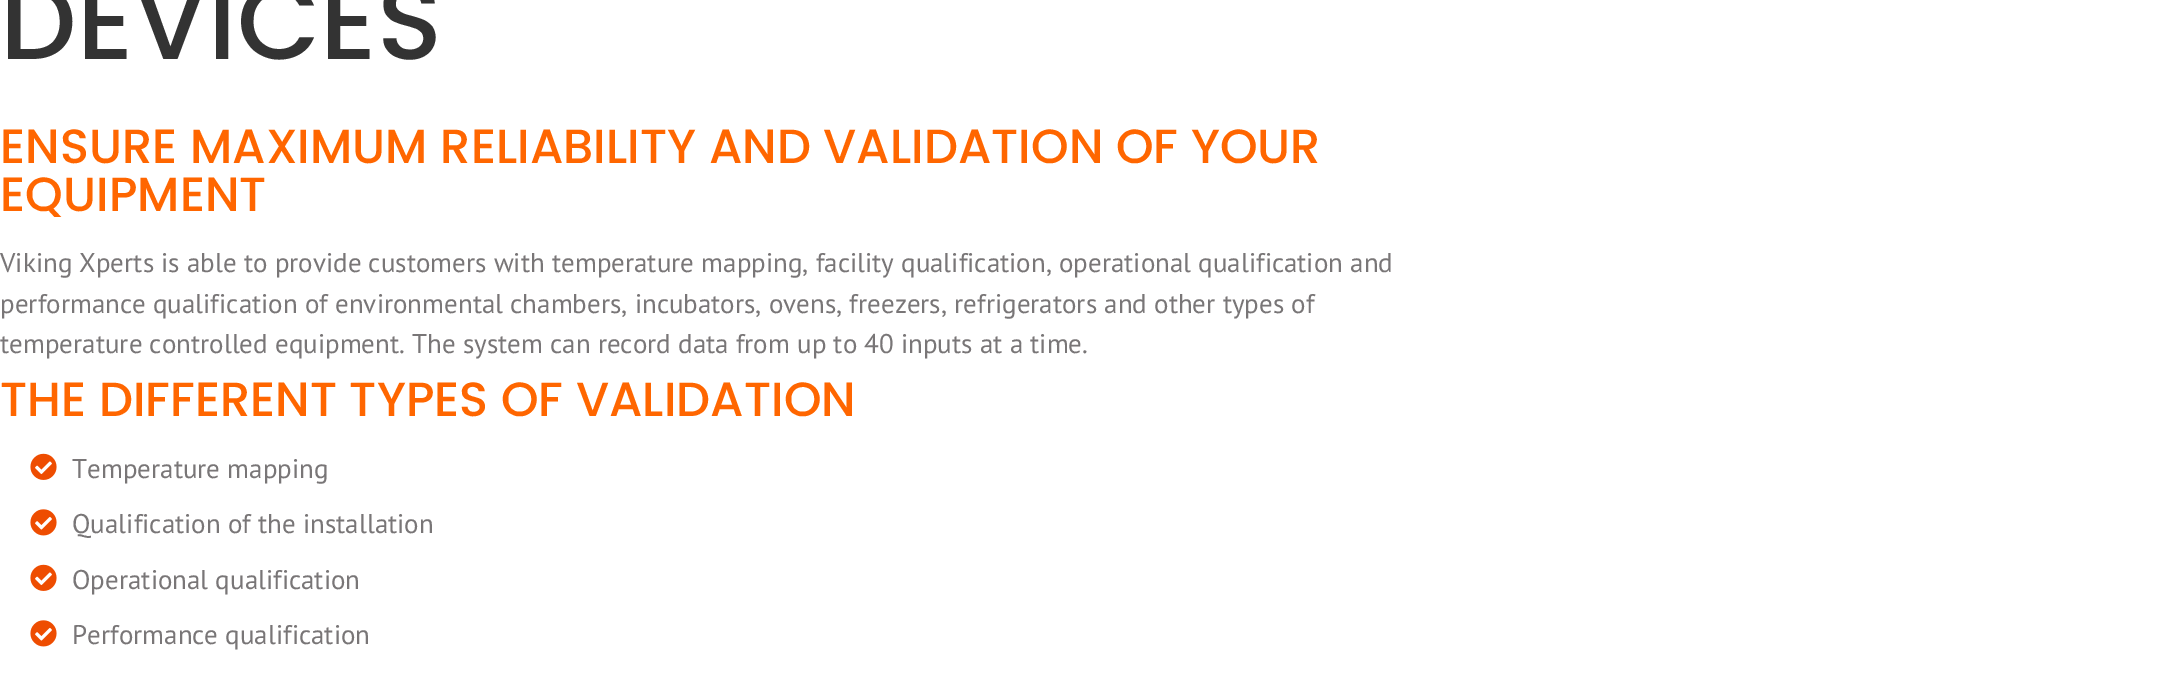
%!PS-Adobe-3.0
%%BoundingBox: 0 0 2159 697
%%LanguageLevel: 3
%%Pages: 1
%%EndComments
%%BeginProlog
/setink { dup -16 bitshift 255 div exch dup -8 bitshift 255 and 255 div exch 255 and 255 div setrgbcolor } def
/usefont { [ exch dup neg 0 0 3 -1 roll 0 0 ] selectfont } def
/drawimage { 5 dict begin { /h /w /y /x /name } { exch def } forall
  gsave x y translate w h scale
  w h 8 [w 0 0 h 0 0] name (r) file false 3 colorimage grestore end } def
%%EndProlog
%%BeginSetup
<< /PageSize [2159 697] >> setpagedevice
%%EndSetup
%%Page: 1 1
0 697 translate 1 -1 scale
4 setmiterlimit
16#FFFFFF setink
0 0 2159 697 rectfill
/Poppins-Medium 108 usefont
16#333333 setink
0 59 moveto (DEVICES) show
/Poppins-Medium 48 usefont
16#FF6600 setink
0 163 moveto (ENSURE MAXIMUM RELIABILITY AND VALIDATION OF YOUR) show
0 211 moveto (EQUIPMENT) show
/PTSans-Regular 27 usefont
16#797677 setink
[
    [(Viking Xperts is able to provide customers with temperature mapping, facility qualification, operational qualification and) 0 272]
    [(performance qualification of environmental chambers, incubators, ovens, freezers, refrigerators and other types of) 0 313]
    [(temperature controlled equipment. The system can record data from up to 40 inputs at a time.) 0 353]
] { aload pop moveto show } forall
/Poppins-Medium 48 usefont
16#FF6600 setink
0 416 moveto (THE DIFFERENT TYPES OF VALIDATION) show
(img1.raw) 30 453 27 27 drawimage
/PTSans-Regular 27 usefont
16#797677 setink
72 478 moveto (Temperature mapping) show
(img2.raw) 30 509 27 27 drawimage
72 533 moveto (Qualification of the installation) show
(img1.raw) 30 564 27 27 drawimage
72 589 moveto (Operational qualification) show
(img2.raw) 30 620 27 27 drawimage
72 644 moveto (Performance qualification) show
showpage
%%EOF
